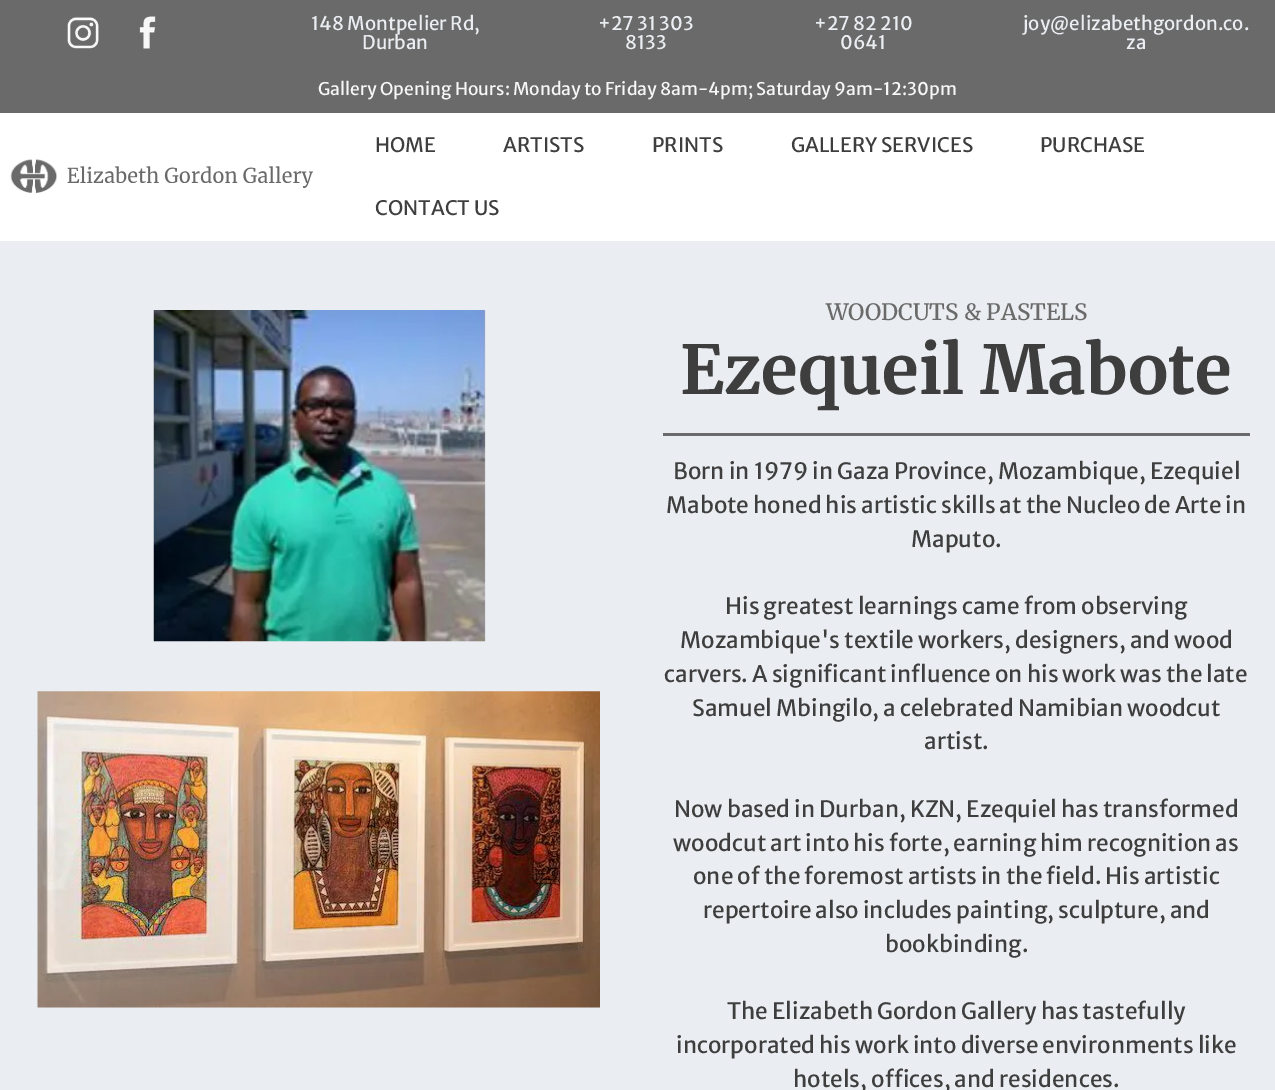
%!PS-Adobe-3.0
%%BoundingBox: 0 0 1275 1090
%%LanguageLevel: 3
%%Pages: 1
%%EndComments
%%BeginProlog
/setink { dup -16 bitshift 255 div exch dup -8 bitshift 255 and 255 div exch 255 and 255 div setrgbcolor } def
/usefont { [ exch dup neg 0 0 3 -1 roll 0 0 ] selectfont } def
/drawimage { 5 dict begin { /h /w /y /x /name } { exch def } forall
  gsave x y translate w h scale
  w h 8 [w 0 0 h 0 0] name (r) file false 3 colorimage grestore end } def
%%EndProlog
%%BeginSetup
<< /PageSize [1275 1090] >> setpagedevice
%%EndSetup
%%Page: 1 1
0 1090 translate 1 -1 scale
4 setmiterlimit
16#FFFFFF setink
0 0 1275 1090 rectfill
16#6A6A6A setink
0 0 1275 113 rectfill
(img1.raw) 67 17 32 32 drawimage
(img2.raw) 139 16 18 33 drawimage
/MerriweatherSans-Regular 18.75 usefont
16#EAEDF1 setink
[
    [(148 Montpelier Rd,) 311 30]
    [(Durban) 362 49]
    [(+27 31 303) 598 30]
    [(8133) 625 49]
    [(+27 82 210) 814 30]
    [(0641) 840 49]
    [(joy@elizabethgordon.co.) 1023 30]
    [(za) 1126 49]
] { aload pop moveto show } forall
/MerriweatherSans-Regular 17.5 usefont
16#F7F7F7 setink
318 95 moveto (Gallery Opening Hours: Monday to Friday 8am-4pm; Saturday 9am-12:30pm) show
(img3.raw) 10 159 303 34 drawimage
/MerriweatherSans-Regular 20 usefont
16#3E3E3E setink
[
    [(HOME) 375 152]
    [(ARTISTS) 503 152]
    [(PRINTS) 652 152]
    [(GALLERY SERVICES) 791 152]
    [(PURCHASE) 1040 152]
    [(CONTACT US) 375 215]
] { aload pop moveto show } forall
16#EAEDF1 setink
0 241 1275 849 rectfill
(img4.raw) 153 310 333 332 drawimage
(img5.raw) 37 691 563 317 drawimage
/Merriweather-Medium 22.5 usefont
16#6A6A6A setink
826 320 moveto (WOODCUTS & PASTELS) show
/Merriweather-Bold 67.5 usefont
16#3E3E3E setink
680 394 moveto (Ezequeil Mabote) show
16#6A6A6A setink
663 433 587 3 rectfill
/MerriweatherSans-Regular 22.5 usefont
16#3E3E3E setink
[
    [(Born in 1979 in Gaza Province, Mozambique, Ezequiel) 673 479]
    [(Mabote honed his artistic skills at the Nucleo de Arte in) 666 513]
    [(Maputo.) 911 547]
    [(His greatest learnings came from observing) 725 614]
    [(Mozambique's textile workers, designers, and wood) 680 648]
    [(carvers. A significant influence on his work was the late) 664 682]
    [(Samuel Mbingilo, a celebrated Namibian woodcut) 692 716]
    [(artist.) 924 749]
    [(Now based in Durban, KZN, Ezequiel has transformed) 674 817]
    [(woodcut art into his forte, earning him recognition as) 673 851]
    [(one of the foremost artists in the field. His artistic) 693 884]
    [(repertoire also includes painting, sculpture, and) 703 918]
    [(bookbinding.) 885 952]
    [(The Elizabeth Gordon Gallery has tastefully) 727 1019]
    [(incorporated his work into diverse environments like) 676 1053]
    [(hotels, offices, and residences.) 793 1087]
] { aload pop moveto show } forall
showpage
%%EOF
